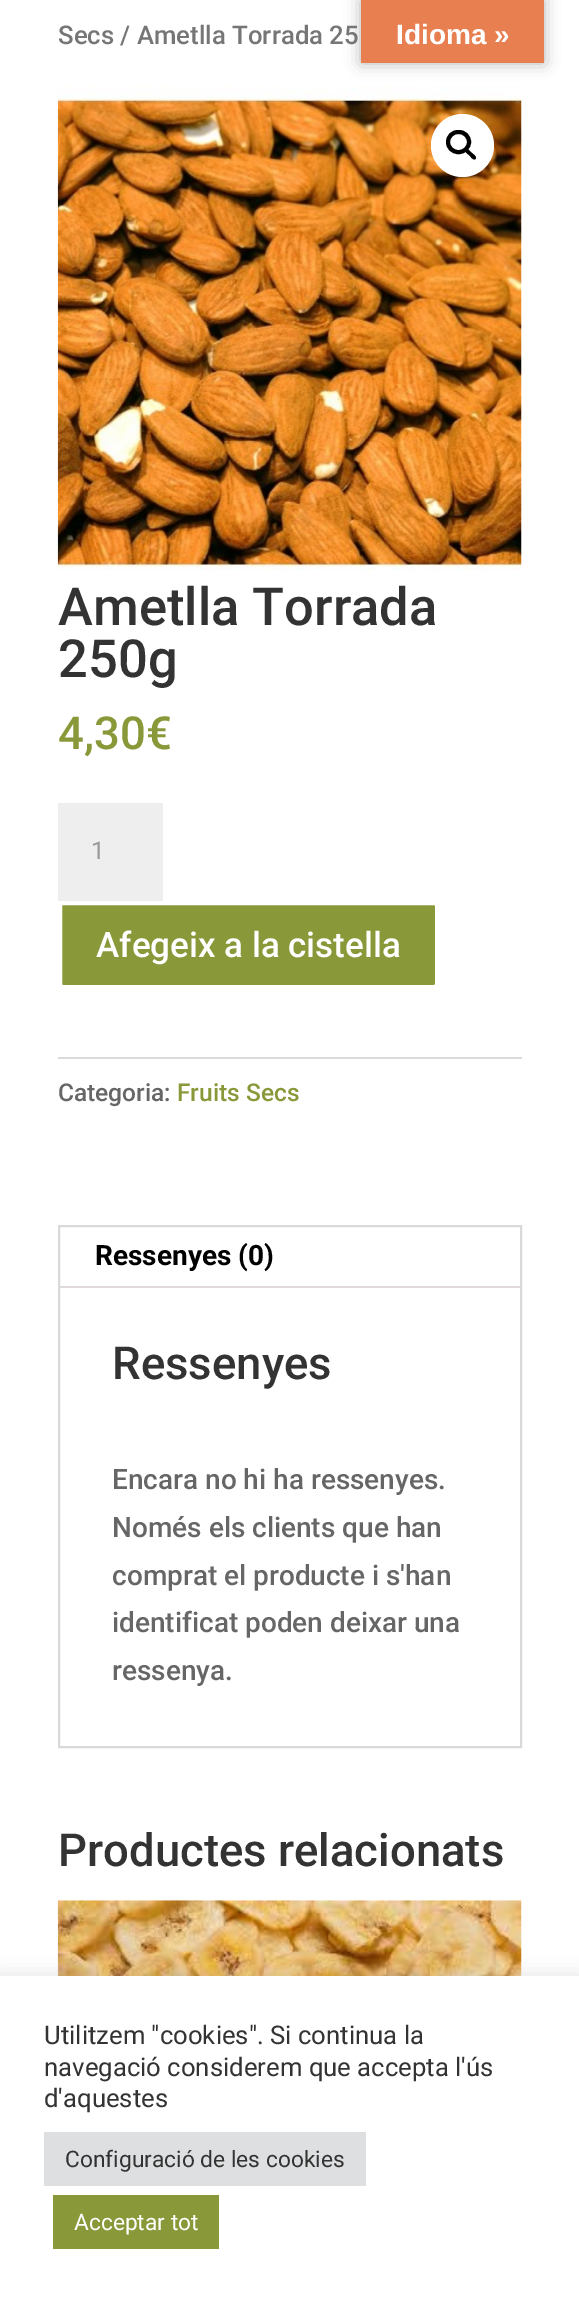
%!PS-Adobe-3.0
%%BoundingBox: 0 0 579 2300
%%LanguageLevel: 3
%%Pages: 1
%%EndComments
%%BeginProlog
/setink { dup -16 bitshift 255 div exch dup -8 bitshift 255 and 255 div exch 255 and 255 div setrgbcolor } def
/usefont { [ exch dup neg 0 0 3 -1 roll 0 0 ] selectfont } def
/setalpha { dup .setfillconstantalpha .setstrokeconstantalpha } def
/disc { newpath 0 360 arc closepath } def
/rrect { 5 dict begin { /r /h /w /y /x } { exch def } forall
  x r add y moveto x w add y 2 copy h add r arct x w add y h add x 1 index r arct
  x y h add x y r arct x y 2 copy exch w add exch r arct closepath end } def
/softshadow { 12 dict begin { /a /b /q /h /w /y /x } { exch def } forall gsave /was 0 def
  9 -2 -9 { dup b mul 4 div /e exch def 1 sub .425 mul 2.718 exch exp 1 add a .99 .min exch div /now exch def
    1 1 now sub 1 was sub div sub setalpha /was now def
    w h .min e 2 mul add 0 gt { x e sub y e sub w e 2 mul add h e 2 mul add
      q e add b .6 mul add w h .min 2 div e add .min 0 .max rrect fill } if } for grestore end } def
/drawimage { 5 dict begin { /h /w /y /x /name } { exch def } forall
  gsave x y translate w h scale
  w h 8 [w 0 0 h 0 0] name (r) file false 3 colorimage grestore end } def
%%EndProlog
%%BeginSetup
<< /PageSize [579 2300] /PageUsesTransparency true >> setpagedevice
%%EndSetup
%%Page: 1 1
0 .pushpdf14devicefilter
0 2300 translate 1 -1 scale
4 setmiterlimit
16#FFFFFF setink
0 0 579 2300 rectfill
(img1.raw) 57 86 465 485 drawimage
16#000000 setink
361 0 183 63 0 8 0.3 softshadow
16#E87F51 setink
361 0 183 63 rectfill
/LiberationSans-Bold 28 usefont
16#FFFFFF setink
396 44 moveto (Idioma ») show
/Roboto-Medium 25.75 usefont
16#767676 setink
58 44 moveto (Secs / Ametlla Torrada 25) show
16#FFFFFF setink
462.5 145.5 31.5 disc fill
16#000000 setink
4 setlinewidth
448 132 21 20 10 rrect stroke
465.5 149.5 moveto 467.5 147.5 470.5 152 472 153 curveto 473 154 477.5 157 475.5 159 curveto 473.5 161 470.5 156.5 469.5 155.5 curveto 468.5 154.5 463.5 151.5 465.5 149.5 curveto closepath fill
/Roboto-Medium 52.5 usefont
16#333333 setink
58 625 moveto (Ametlla Torrada) show
58 677 moveto (250g) show
/Roboto-Medium 45.5 usefont
16#899839 setink
58 749 moveto (4,30€) show
16#EEEEEE setink
58 803 105 98 rectfill
/Roboto-Regular 24.5 usefont
16#999999 setink
91 859 moveto (1) show
16#899839 setink
60 903 377 84 3 rrect gsave fill grestore
16#FFFFFF setink
stroke
/Roboto-Medium 35 usefont
96 957 moveto (Afegeix a la cistella) show
16#DADADA setink
58 1057 464 2 rectfill
/Roboto-Medium 24.5 usefont
16#666666 setink
58 1101 moveto (Categoria:) show
16#899839 setink
177 1101 moveto (Fruits Secs) show
16#D9D9D9 setink
2 setlinewidth
59 1226 462 521 rectstroke
16#E0DADF setink
60 1286 460 2 rectfill
/Roboto-Bold 28 usefont
16#000000 setink
95 1265 moveto (Ressenyes \(0\)) show
/Roboto-Medium 45.5 usefont
16#333333 setink
112 1379 moveto (Ressenyes) show
/Roboto-Medium 28 usefont
16#666666 setink
[
    [(Encara no hi ha ressenyes.) 112 1489]
    [(Només els clients que han) 112 1537]
    [(comprat el producte i s'han) 112 1585]
    [(identificat poden deixar una) 112 1632]
    [(ressenya.) 112 1680]
] { aload pop moveto show } forall
/Roboto-Medium 45.5 usefont
16#333333 setink
58 1866 moveto (Productes relacionats) show
(img2.raw) 57 1900 465 76 drawimage
16#ACABAB setink
0 1974 579 326 0 9 0.3 softshadow
16#FFFFFF setink
0 1976 579 324 rectfill
/Roboto-Regular 25.7 usefont
16#333333 setink
[
    [(Utilitzem "cookies". Si continua la) 44 2044]
    [(navegació considerem que accepta l'ús) 44 2076]
    [(d'aquestes) 44 2107]
] { aload pop moveto show } forall
16#DEDFE0 setink
44 2132 322 54 rectfill
/Roboto-Regular 22.75 usefont
16#333333 setink
65 2167 moveto (Configuració de les cookies) show
16#899839 setink
53 2195 166 54 rectfill
16#FFFFFF setink
74 2230 moveto (Acceptar tot) show
.poppdf14devicefilter showpage
%%EOF
